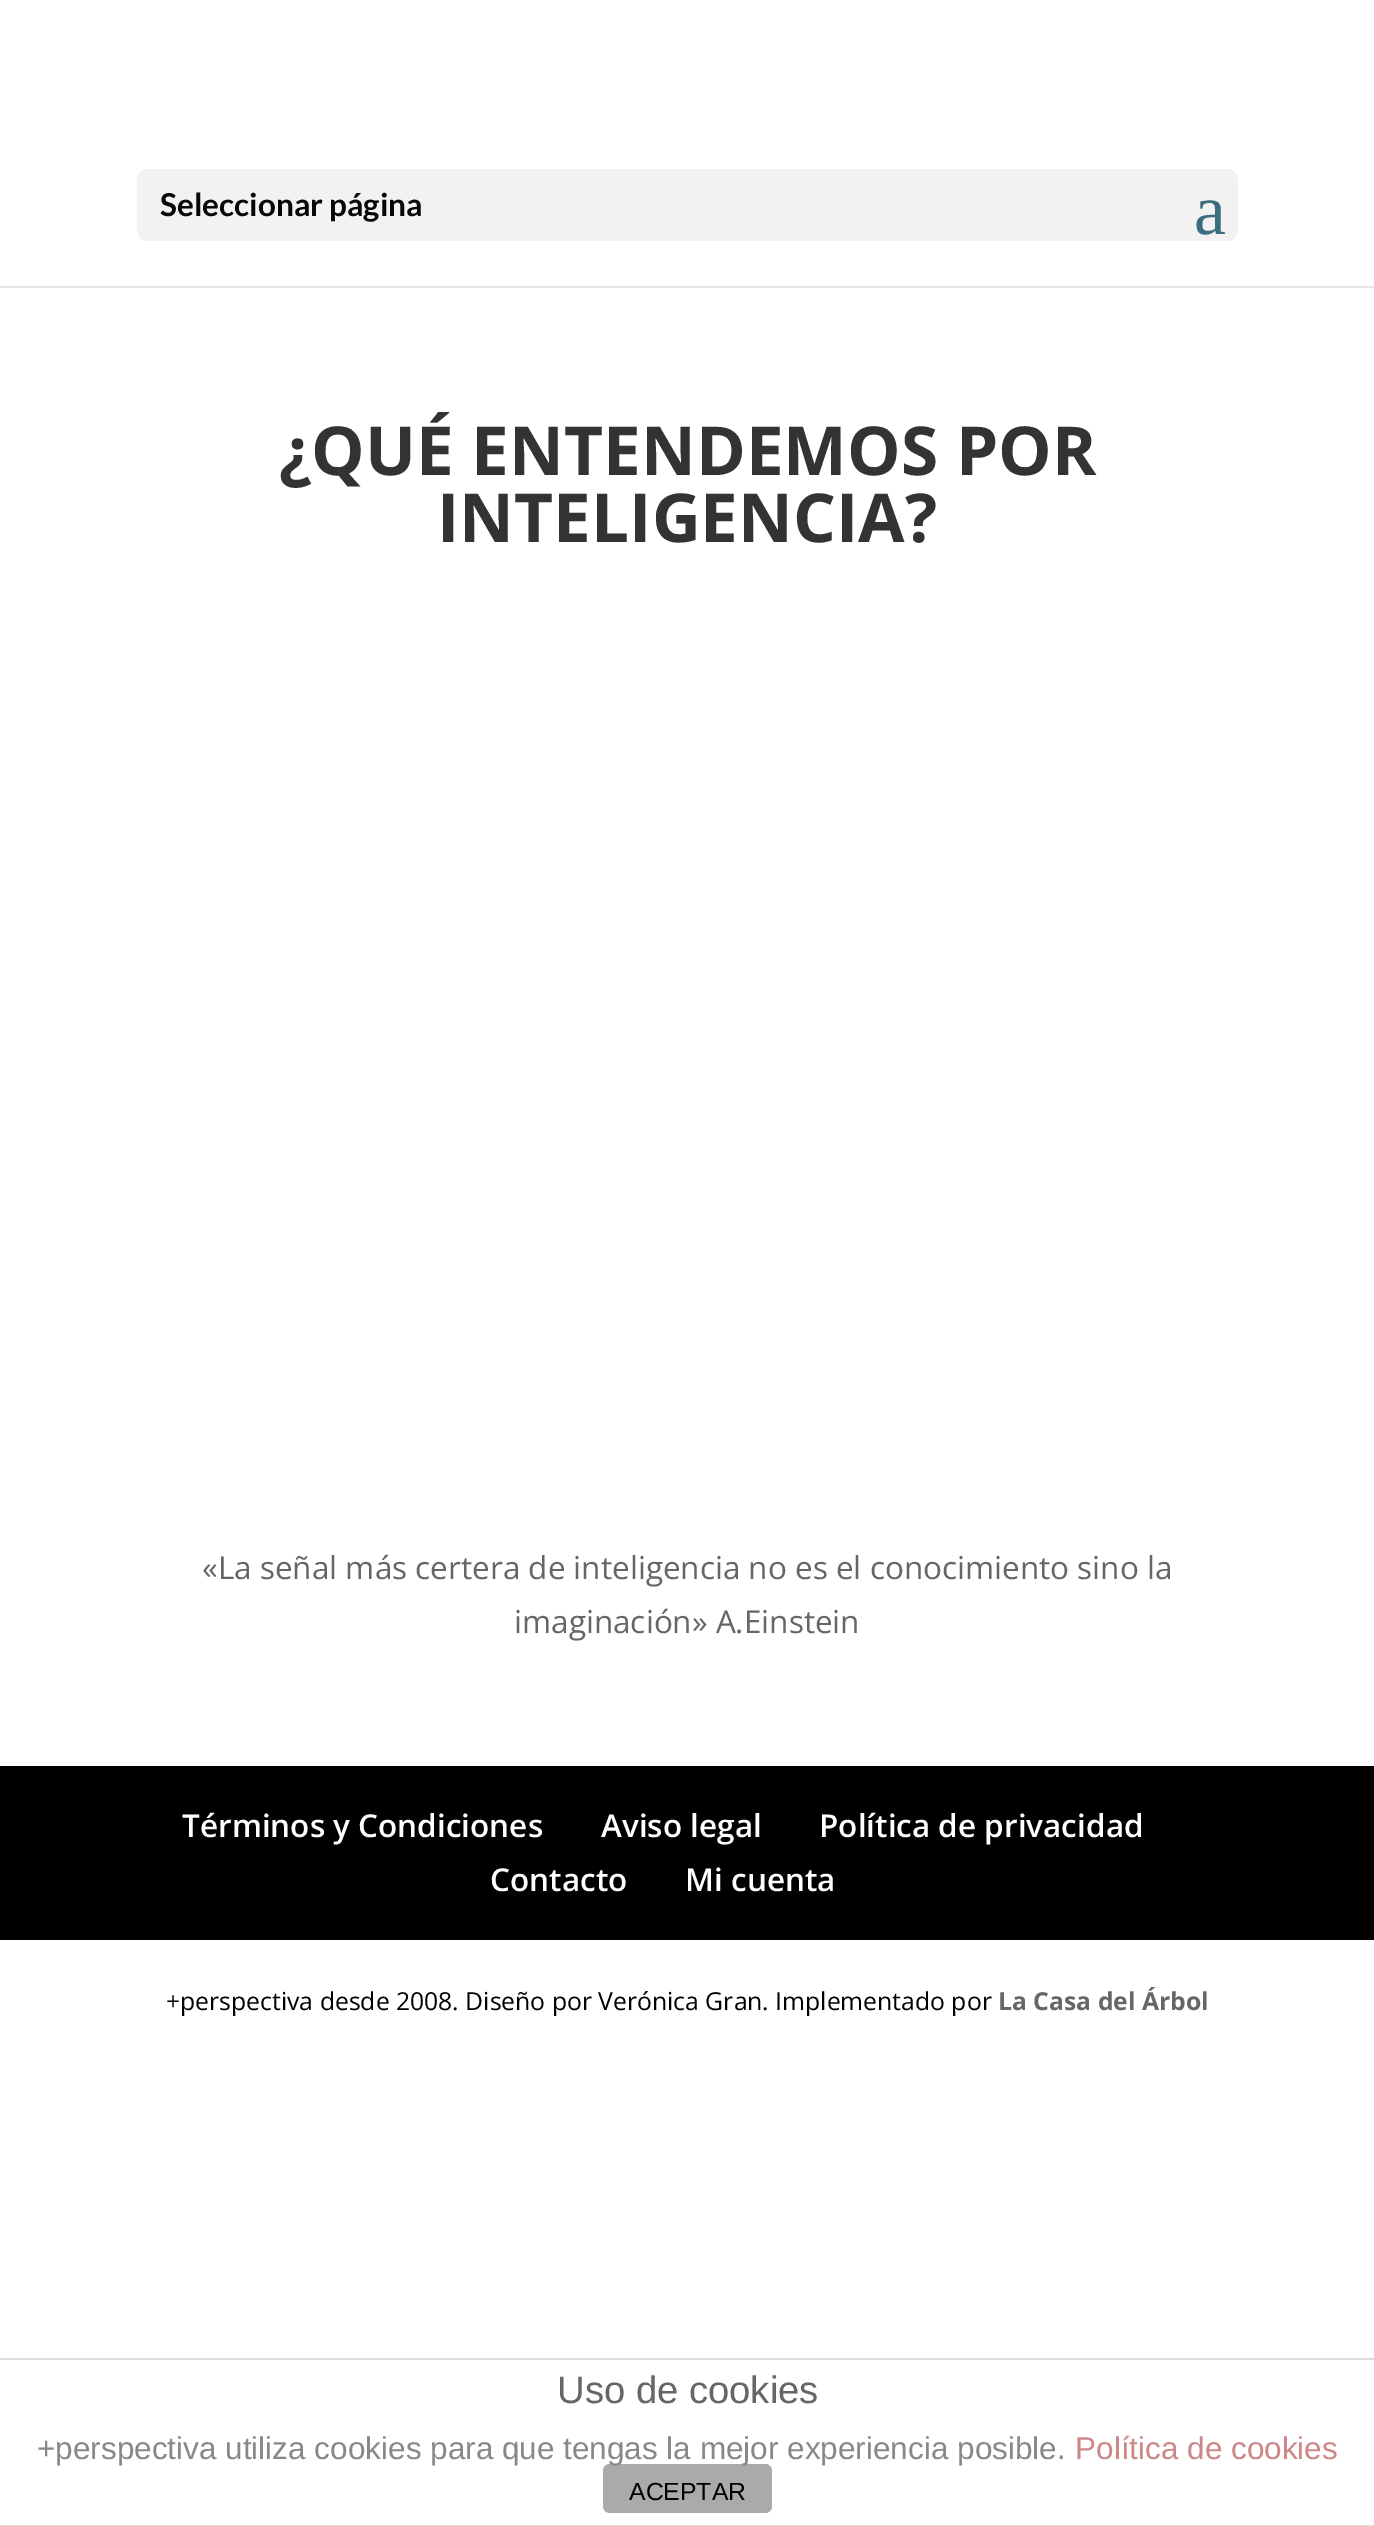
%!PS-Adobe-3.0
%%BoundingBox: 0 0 1374 2526
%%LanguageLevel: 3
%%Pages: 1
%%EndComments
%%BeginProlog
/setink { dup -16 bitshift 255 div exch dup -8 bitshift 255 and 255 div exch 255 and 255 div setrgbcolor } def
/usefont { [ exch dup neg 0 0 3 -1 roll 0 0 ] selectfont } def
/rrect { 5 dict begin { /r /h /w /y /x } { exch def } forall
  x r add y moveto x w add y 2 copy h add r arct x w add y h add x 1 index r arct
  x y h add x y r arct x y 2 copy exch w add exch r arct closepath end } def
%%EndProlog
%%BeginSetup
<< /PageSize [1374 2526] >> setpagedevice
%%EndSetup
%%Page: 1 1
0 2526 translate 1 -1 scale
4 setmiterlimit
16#FFFFFF setink
0 0 1374 2526 rectfill
16#E6E6E6 setink
0 286 moveto 0 288 lineto 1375 288 lineto 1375 2 lineto 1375 286 lineto closepath fill
16#F2F2F2 setink
137 169 1101 72 11 rrect fill
/Lato-Bold 31.5 usefont
16#070909 setink
160 216 moveto (Seleccionar página) show
/LiberationSerif-Regular 72 usefont
16#3A6E7F setink
1194 234 moveto (a) show
/OpenSans-Bold 67.5 usefont
16#333333 setink
279 475 moveto (¿QUÉ ENTENDEMOS POR) show
437 542 moveto (INTELIGENCIA?) show
/OpenSans-Regular 31.5 usefont
16#666666 setink
202 1579 moveto («La señal más certera de inteligencia no es el conocimiento sino la) show
514 1633 moveto (imaginación» A.Einstein) show
16#000000 setink
0 1766 1374 174 rectfill
/OpenSans-SemiBold 31.5 usefont
16#FFFFFF setink
[
    [(Términos y Condiciones) 182 1837]
    [(Aviso legal) 601 1837]
    [(Política de privacidad) 819 1837]
    [(Contacto) 490 1891]
    [(Mi cuenta) 685 1891]
] { aload pop moveto show } forall
/OpenSans-Regular 24.75 usefont
16#000000 setink
166 2010 moveto (+perspectiva desde 2008. Diseño por Verónica Gran. Implementado por) show
/OpenSans-Bold 24.75 usefont
16#666666 setink
998 2010 moveto (La Casa del Árbol) show
16#DDDDDD setink
0 2358 1374 2 rectfill
0 2525 1374 1 rectfill
/LiberationSans-Regular 38.25 usefont
16#666666 setink
557 2403 moveto (Uso de cookies) show
16#AAAAAA setink
603 2464 169 49 7 rrect fill
/LiberationSans-Regular 31.5 usefont
16#888888 setink
37 2459 moveto (+perspectiva utiliza cookies para que tengas la mejor experiencia posible.) show
16#CC8888 setink
1075 2459 moveto (Política de cookies) show
/LiberationSans-Regular 24.75 usefont
16#000000 setink
629 2500 moveto (ACEPTAR) show
showpage
%%EOF
